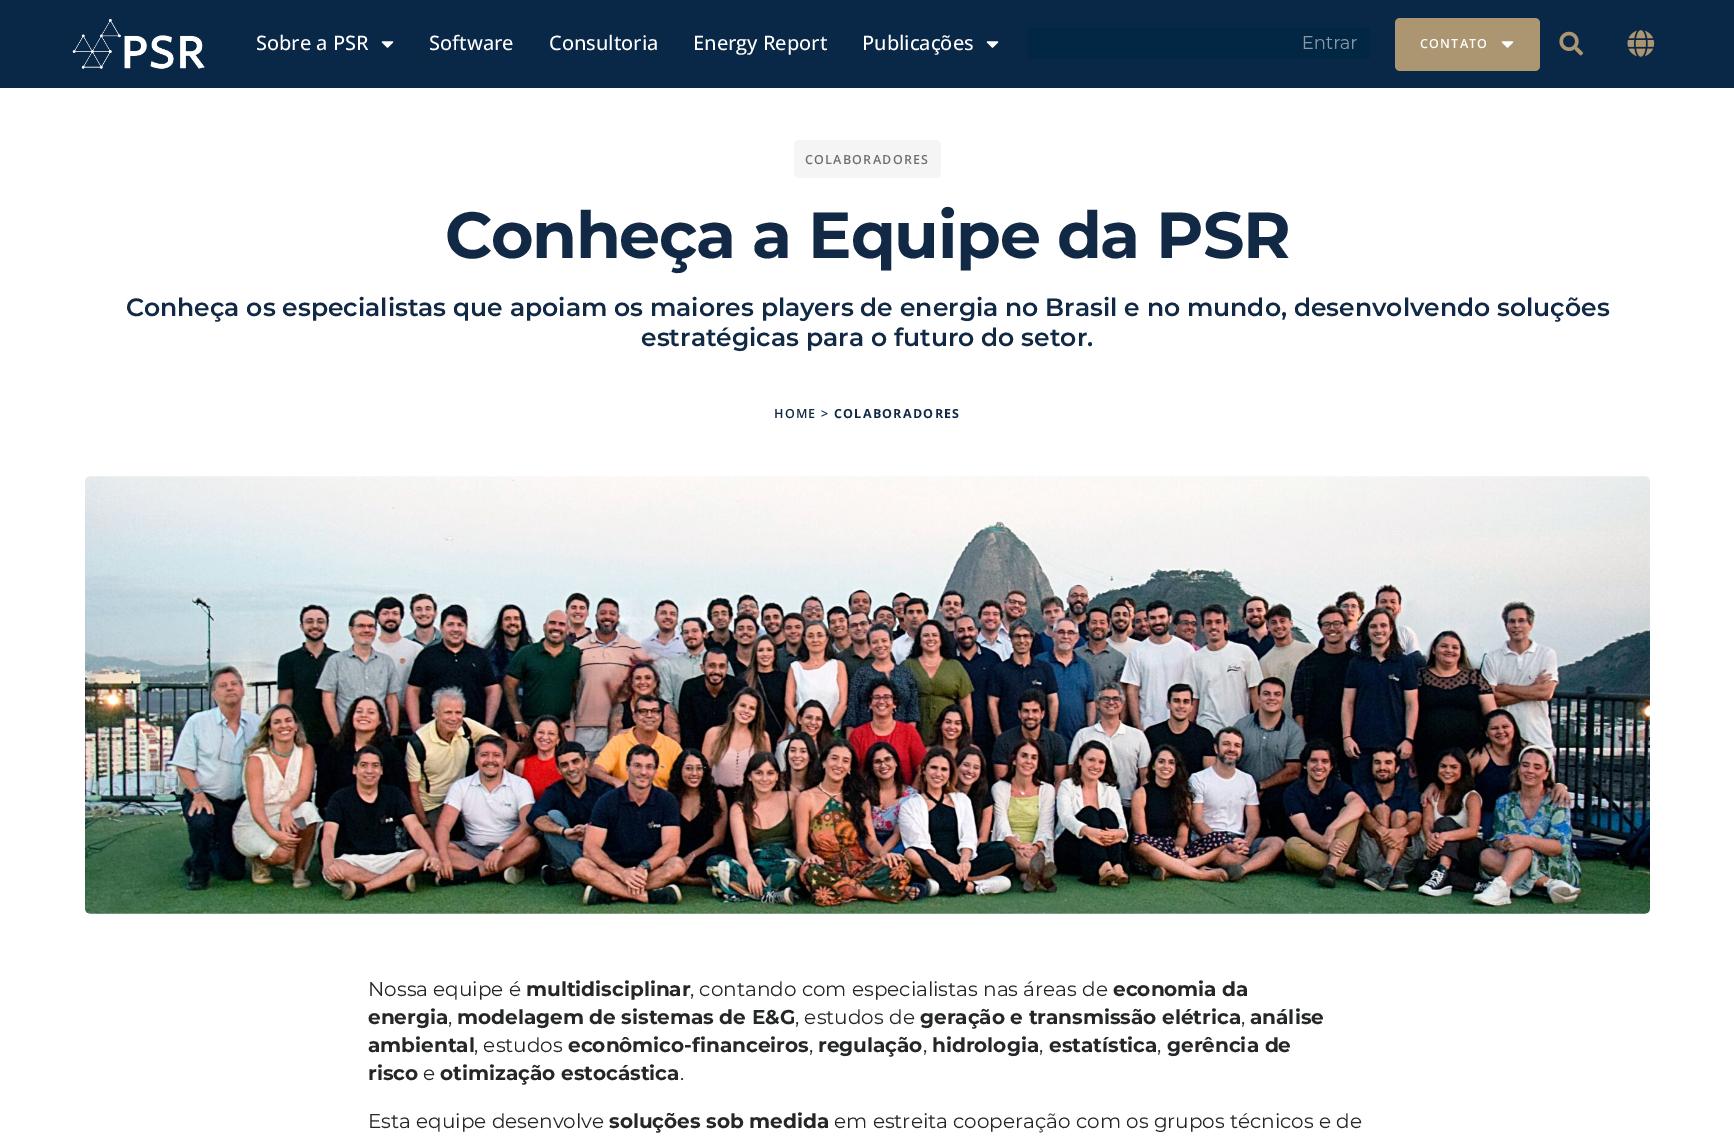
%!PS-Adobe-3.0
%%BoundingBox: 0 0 1734 1144
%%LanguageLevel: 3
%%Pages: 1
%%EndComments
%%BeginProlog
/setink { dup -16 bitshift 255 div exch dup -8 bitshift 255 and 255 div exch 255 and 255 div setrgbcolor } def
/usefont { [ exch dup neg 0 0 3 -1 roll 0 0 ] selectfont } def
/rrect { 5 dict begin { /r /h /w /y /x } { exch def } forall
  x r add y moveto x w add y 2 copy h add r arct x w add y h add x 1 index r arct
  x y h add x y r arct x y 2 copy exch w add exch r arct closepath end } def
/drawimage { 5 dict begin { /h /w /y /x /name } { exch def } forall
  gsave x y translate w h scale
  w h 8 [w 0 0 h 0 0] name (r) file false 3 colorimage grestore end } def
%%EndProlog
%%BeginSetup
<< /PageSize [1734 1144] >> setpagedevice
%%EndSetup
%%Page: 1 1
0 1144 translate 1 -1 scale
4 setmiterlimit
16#FFFFFF setink
0 0 1734 1144 rectfill
16#092746 setink
0 0 1734 88 rectfill
(img1.raw) 72 18 133 51 drawimage
/OpenSans-Medium 20 usefont
16#FFFFFF setink
256 50 moveto (Sobre a PSR) show
(img2.raw) 381 41 13 7 drawimage
[
    [(Software) 429 50]
    [(Consultoria) 549 50]
    [(Energy Report) 693 50]
    [(Publicações) 862 50]
] { aload pop moveto show } forall
(img2.raw) 986 41 13 7 drawimage
(img3.raw) 1028 28 342 31 drawimage
16#AB9671 setink
1395 18 145 53 5 rrect fill
/OpenSans-SemiBold 12.5 usefont
16#FFFFFF setink
1420 48 moveto 1.25 0 (CONTATO) ashow
(img4.raw) 1501 41 13 7 drawimage
(img5.raw) 1559 31 25 25 drawimage
(img6.raw) 1627 30 28 27 drawimage
16#F5F5F5 setink
794 140 147 38 5 rrect fill
16#706F6F setink
805 164 moveto 1.25 0 (COLABORADORES) ashow
/Montserrat-Bold 65 usefont
16#122945 setink
445 258 moveto -1.25 0 (Conheça a Equipe da PSR) ashow
/Montserrat-SemiBold 25 usefont
126 316 moveto (Conheça os especialistas que apoiam os maiores players de energia no Brasil e no mundo, desenvolvendo soluções) show
641 346 moveto (estratégicas para o futuro do setor.) show
/OpenSans-SemiBold 12.5 usefont
774 418 moveto 1.25 0 (HOME >) ashow
/OpenSans-Bold 12.5 usefont
834 418 moveto 1.25 0 (COLABORADORES) ashow
(img7.raw) 85 476 1565 438 drawimage
/Montserrat-Regular 20 usefont
16#242627 setink
368 996 moveto (Nossa equipe é) show
/Montserrat-Bold 20 usefont
526 996 moveto (multidisciplinar) show
/Montserrat-Regular 20 usefont
690 996 moveto (, contando com especialistas nas áreas de) show
/Montserrat-Bold 20 usefont
1113 996 moveto (economia da) show
368 1024 moveto (energia) show
/Montserrat-Regular 20 usefont
448 1024 moveto (,) show
/Montserrat-Bold 20 usefont
457 1024 moveto (modelagem de sistemas de E&G) show
/Montserrat-Regular 20 usefont
795 1024 moveto (, estudos de) show
/Montserrat-Bold 20 usefont
920 1024 moveto (geração e transmissão elétrica) show
/Montserrat-Regular 20 usefont
1241 1024 moveto (,) show
/Montserrat-Bold 20 usefont
1250 1024 moveto (análise) show
368 1052 moveto (ambiental) show
/Montserrat-Regular 20 usefont
474 1052 moveto (, estudos) show
/Montserrat-Bold 20 usefont
568 1052 moveto (econômico-financeiros) show
/Montserrat-Regular 20 usefont
809 1052 moveto (,) show
/Montserrat-Bold 20 usefont
818 1052 moveto (regulação) show
/Montserrat-Regular 20 usefont
923 1052 moveto (,) show
/Montserrat-Bold 20 usefont
932 1052 moveto (hidrologia) show
/Montserrat-Regular 20 usefont
1039 1052 moveto (,) show
/Montserrat-Bold 20 usefont
1049 1052 moveto (estatística) show
/Montserrat-Regular 20 usefont
1157 1052 moveto (,) show
/Montserrat-Bold 20 usefont
1167 1052 moveto (gerência de) show
368 1080 moveto (risco) show
/Montserrat-Regular 20 usefont
423 1080 moveto (e) show
/Montserrat-Bold 20 usefont
440 1080 moveto (otimização estocástica) show
/Montserrat-Regular 20 usefont
680 1080 moveto (.) show
368 1128 moveto (Esta equipe desenvolve) show
/Montserrat-Bold 20 usefont
609 1128 moveto (soluções sob medida) show
/Montserrat-Regular 20 usefont
834 1128 moveto (em estreita cooperação com os grupos técnicos e de) show
showpage
%%EOF
